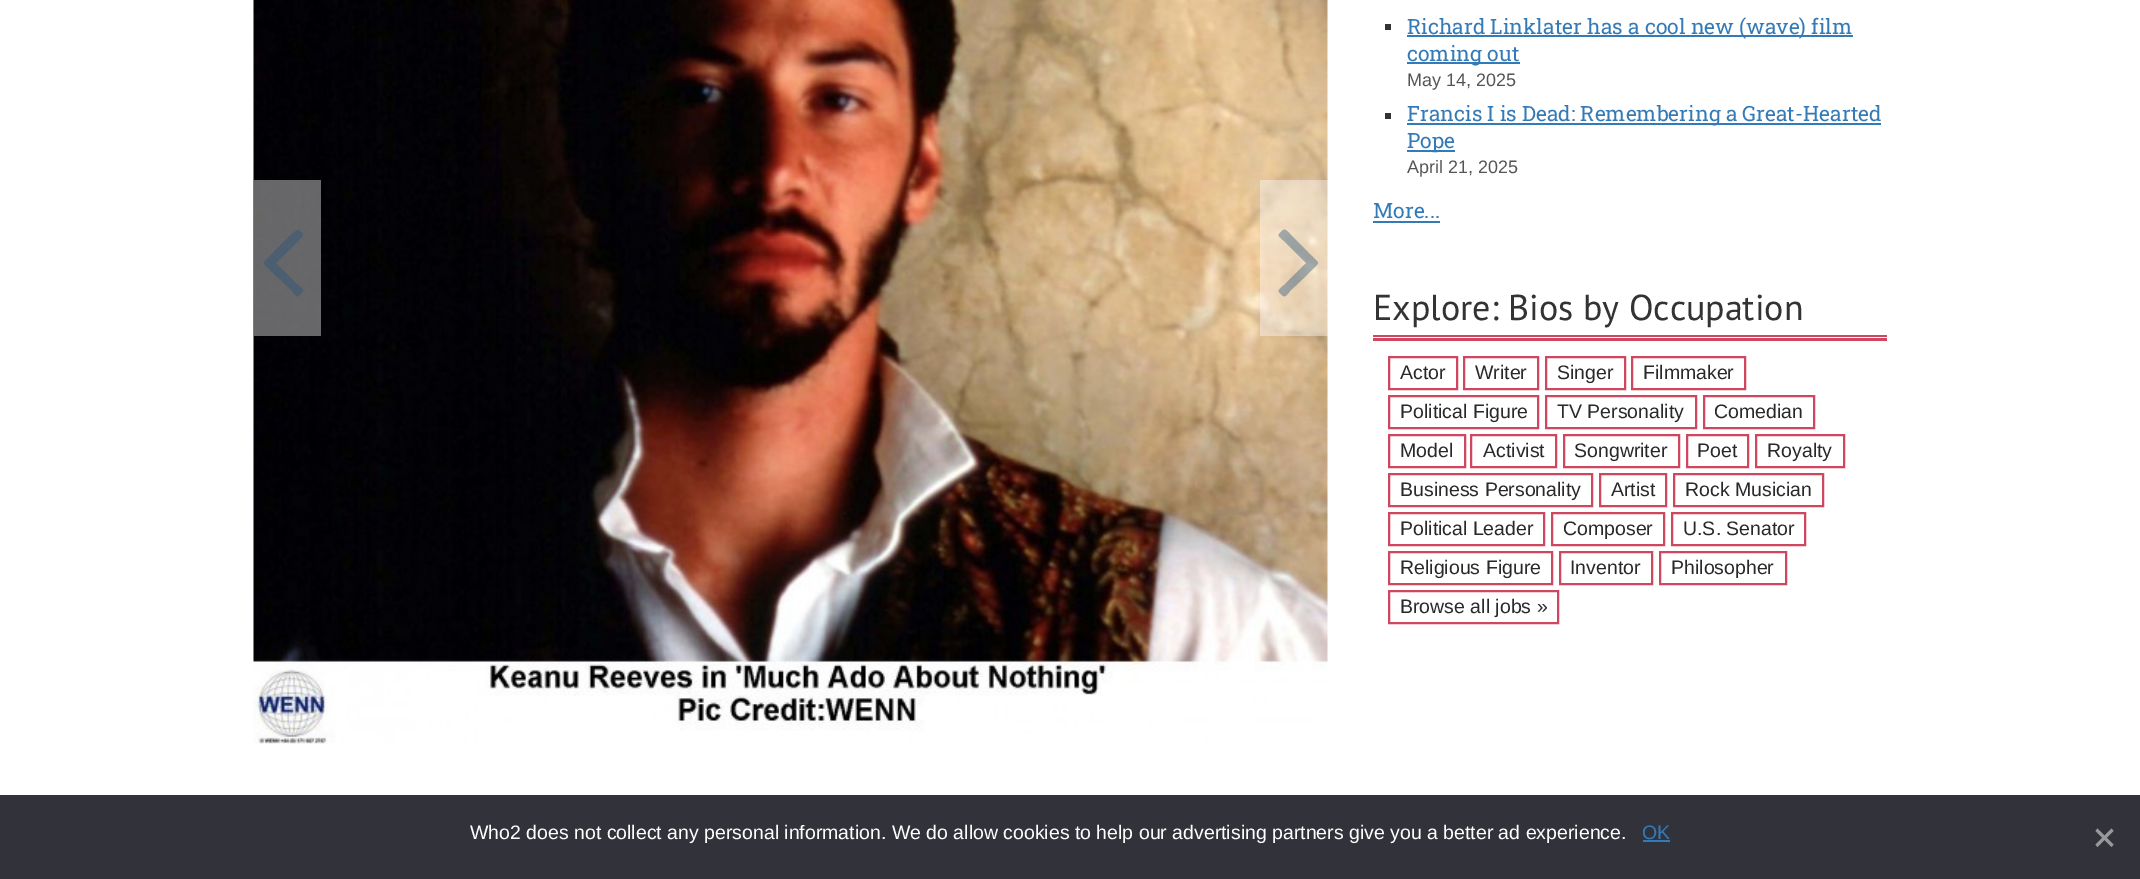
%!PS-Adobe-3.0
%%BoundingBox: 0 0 2140 879
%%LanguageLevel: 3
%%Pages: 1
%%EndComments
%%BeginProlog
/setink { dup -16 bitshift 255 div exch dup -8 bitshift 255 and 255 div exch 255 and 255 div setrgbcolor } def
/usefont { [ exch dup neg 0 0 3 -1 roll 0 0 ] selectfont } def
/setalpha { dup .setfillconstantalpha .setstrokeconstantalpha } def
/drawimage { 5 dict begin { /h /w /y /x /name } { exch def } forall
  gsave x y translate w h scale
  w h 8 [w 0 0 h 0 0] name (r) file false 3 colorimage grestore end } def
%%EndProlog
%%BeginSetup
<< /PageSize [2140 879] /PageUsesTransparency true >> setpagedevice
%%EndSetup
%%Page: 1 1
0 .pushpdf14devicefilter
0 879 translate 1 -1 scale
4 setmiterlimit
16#FFFFFF setink
0 0 2140 879 rectfill
(img1.raw) 253 0 1075 744 drawimage
0.4 setalpha
254 180 67 156 rectfill
16#23527C setink
303 235 moveto 303 233 299 230 298 230 curveto 295 229 273 253 270 256 curveto 262 264 262 262 270 270 curveto 291 290 lineto 295 294 296 299 300 295 curveto 303 291 lineto 304 289 298 285 298 285 curveto 276 263 lineto 279 260 303 237 303 235 curveto closepath fill
16#FFFFFF setink
1260 180 68 156 rectfill
16#23527C setink
1318 263 moveto 1318 261 1308 253 1307 251 curveto 1291 235 lineto 1285 229 1285 227 1279 234 curveto 1277 236 1283 240 1284 241 curveto 1306 263 lineto 1284 285 lineto 1283 286 1277 290 1279 292 curveto 1285 299 1285 297 1291 290 curveto 1307 275 lineto 1308 273 1318 265 1318 263 curveto closepath fill
1 setalpha
16#333333 setink
1385 24 6 6 rectfill
16#337AB7 setink
1407 35 446 2 rectfill
/RobotoSlab-Regular 21 usefont
1407 34 moveto (Richard Linklater has a cool new \(wave\) film) show
1407 62 113 2 rectfill
1407 61 moveto (coming out) show
/LiberationSans-Regular 18 usefont
16#555555 setink
1407 86 moveto (May 14, 2025) show
16#333333 setink
1385 113 6 6 rectfill
16#337AB7 setink
1407 123 474 2 rectfill
/RobotoSlab-Regular 21 usefont
1407 121 moveto (Francis I is Dead: Remembering a Great-Hearted) show
1407 150 48 2 rectfill
1407 148 moveto (Pope) show
/LiberationSans-Regular 18 usefont
16#555555 setink
1407 173 moveto (April 21, 2025) show
/RobotoSlab-Regular 21 usefont
16#337AB7 setink
1373 218 moveto (More...) show
1373 221 67 2 rectfill
/PTSans-Regular 36 usefont
16#333333 setink
1373 320 moveto (Explore: Bios by Occupation) show
16#CF475F setink
1373 335 514 2 rectfill
1373 338 514 3 rectfill
2 setlinewidth
1389 357 68 32 rectstroke
/LiberationSans-Regular 19.5 usefont
16#292929 setink
1400 379 moveto (Actor) show
16#CF475F setink
1464 357 74 32 rectstroke
16#292929 setink
1475 379 moveto (Writer) show
16#CF475F setink
1546 357 79 32 rectstroke
16#292929 setink
1557 379 moveto (Singer) show
16#CF475F setink
1632 357 113 32 rectstroke
16#292929 setink
1643 379 moveto (Filmmaker) show
16#CF475F setink
1389 396 149 32 rectstroke
16#292929 setink
1400 418 moveto (Political Figure) show
16#CF475F setink
1546 396 150 32 rectstroke
16#292929 setink
1557 418 moveto (TV Personality) show
16#CF475F setink
1704 396 110 32 rectstroke
16#292929 setink
1714 418 moveto (Comedian) show
16#CF475F setink
1389 435 76 32 rectstroke
16#292929 setink
1400 457 moveto (Model) show
16#CF475F setink
1471 435 85 32 rectstroke
16#292929 setink
1483 457 moveto (Activist) show
16#CF475F setink
1564 435 115 32 rectstroke
16#292929 setink
1574 457 moveto (Songwriter) show
16#CF475F setink
1687 435 61 32 rectstroke
16#292929 setink
1697 457 moveto (Poet) show
16#CF475F setink
1756 435 88 32 rectstroke
16#292929 setink
1767 457 moveto (Royalty) show
16#CF475F setink
1389 474 203 32 rectstroke
16#292929 setink
1400 496 moveto (Business Personality) show
16#CF475F setink
1600 474 66 32 rectstroke
16#292929 setink
1611 496 moveto (Artist) show
16#CF475F setink
1674 474 149 32 rectstroke
16#292929 setink
1685 496 moveto (Rock Musician) show
16#CF475F setink
1389 513 155 32 rectstroke
16#292929 setink
1400 535 moveto (Political Leader) show
16#CF475F setink
1552 513 112 32 rectstroke
16#292929 setink
1563 535 moveto (Composer) show
16#CF475F setink
1672 513 133 32 rectstroke
16#292929 setink
1683 535 moveto (U.S. Senator) show
16#CF475F setink
1389 552 163 32 rectstroke
16#292929 setink
1400 574 moveto (Religious Figure) show
16#CF475F setink
1560 552 92 32 rectstroke
16#292929 setink
1570 574 moveto (Inventor) show
16#CF475F setink
1660 552 126 32 rectstroke
16#292929 setink
1671 574 moveto (Philosopher) show
16#CF475F setink
1389 591 169 32 rectstroke
16#292929 setink
1400 613 moveto (Browse all jobs ») show
16#32323A setink
0 795 2140 84 rectfill
16#FFFFFF setink
470 839 moveto (Who2 does not collect any personal information. We do allow cookies to help our advertising partners give you a better ad experience.) show
16#337AB7 setink
1642 839 moveto (OK) show
1643 840 27 2 rectfill
16#99999D setink
2111.5 828.5 moveto 2113.5 831 lineto 2097.5 847 lineto 2095.5 844.5 lineto closepath fill
2095.5 831 moveto 2097.5 828.5 lineto 2113.5 844.5 lineto 2111.5 847 lineto closepath fill
.poppdf14devicefilter showpage
%%EOF
